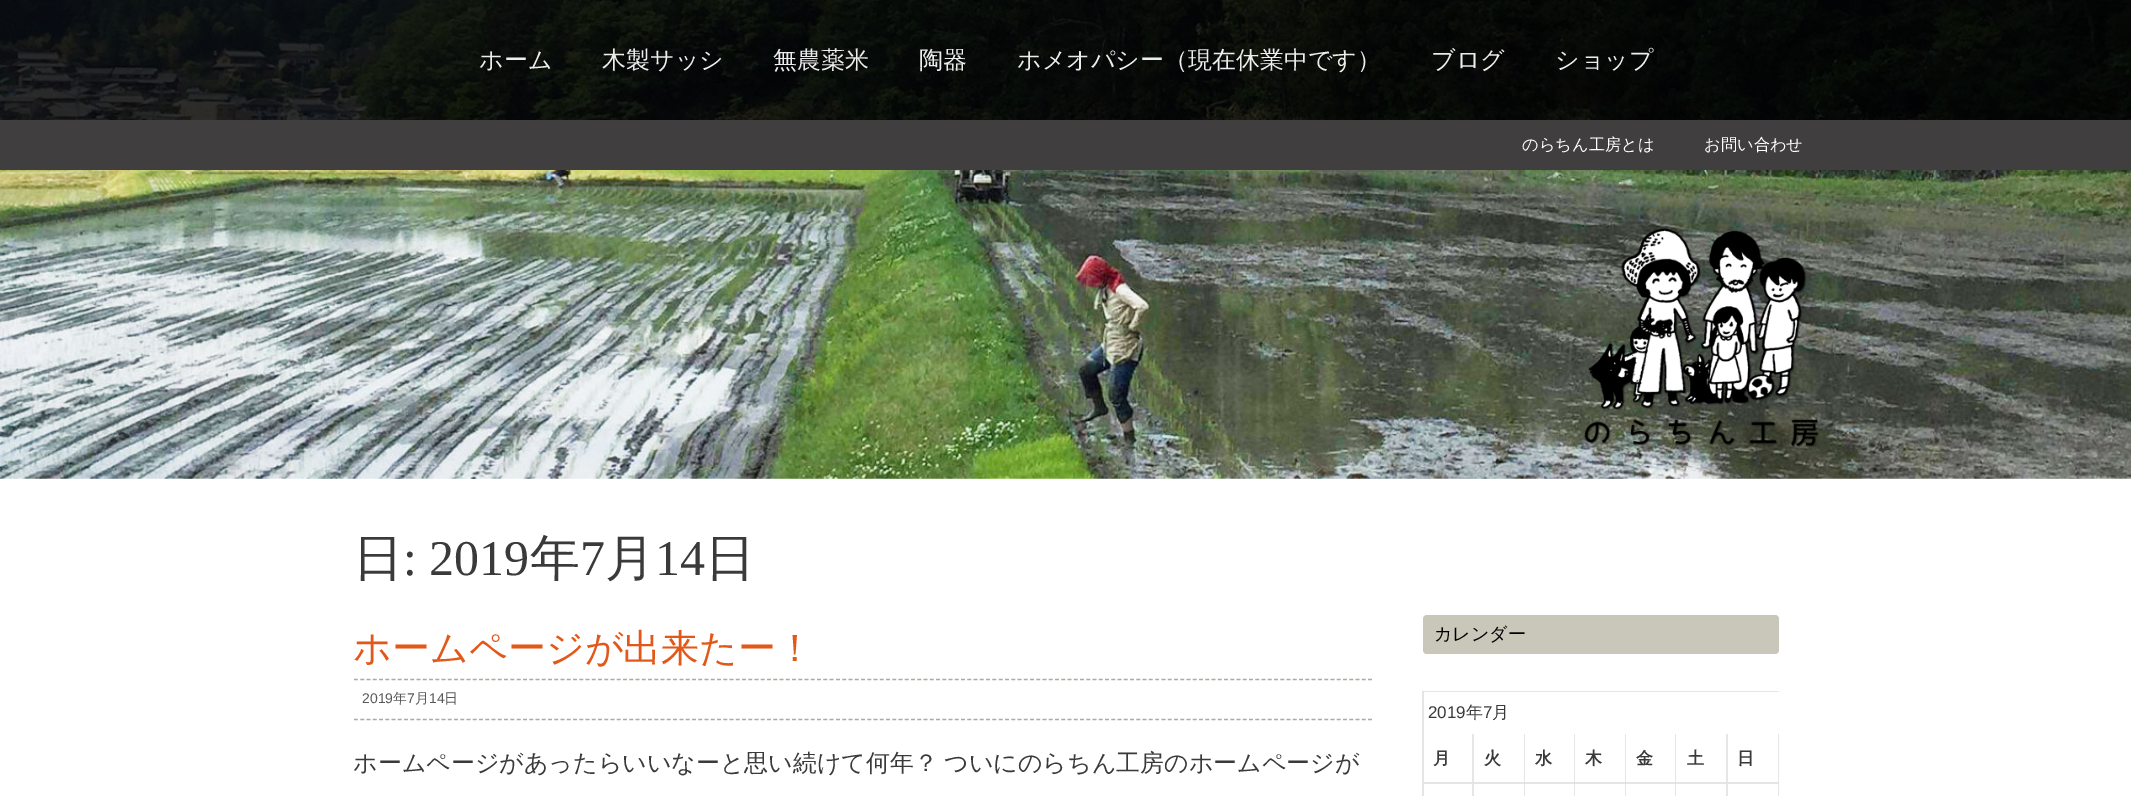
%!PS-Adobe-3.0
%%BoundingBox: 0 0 2131 796
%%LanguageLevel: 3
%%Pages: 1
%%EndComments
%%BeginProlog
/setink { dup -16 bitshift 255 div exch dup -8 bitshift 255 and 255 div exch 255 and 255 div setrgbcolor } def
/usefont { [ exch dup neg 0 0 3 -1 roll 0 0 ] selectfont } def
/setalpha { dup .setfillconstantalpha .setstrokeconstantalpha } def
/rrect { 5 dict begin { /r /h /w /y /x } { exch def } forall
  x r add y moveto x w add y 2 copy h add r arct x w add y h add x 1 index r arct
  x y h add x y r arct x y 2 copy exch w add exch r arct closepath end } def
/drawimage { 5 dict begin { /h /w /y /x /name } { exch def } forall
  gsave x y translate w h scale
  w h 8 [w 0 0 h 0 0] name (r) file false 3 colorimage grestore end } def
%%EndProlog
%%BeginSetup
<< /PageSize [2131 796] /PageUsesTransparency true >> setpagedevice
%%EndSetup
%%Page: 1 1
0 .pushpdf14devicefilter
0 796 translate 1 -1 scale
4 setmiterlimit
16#FFFFFF setink
0 0 2131 796 rectfill
(img1.raw) 0 0 2131 479 drawimage
0.82 setalpha
16#000000 setink
0 0 2131 120 rectfill
/WenQuanYiZenHei-Medium 24 usefont
1 setalpha
16#EDEDED setink
[
    [(ホーム) 479 68]
    [(木製サッシ) 602 68]
    [(無農薬米) 773 68]
    [(陶器) 919 68]
    [(ホメオパシー（現在休業中です）) 1017 68]
    [(ブログ) 1431 68]
    [(ショップ) 1555 68]
] { aload pop moveto show } forall
16#403E3E setink
0 120 2131 50 rectfill
/WenQuanYiZenHei-Medium 16.25 usefont
16#FFFFFF setink
1522 150 moveto (のらちん工房とは) show
1704 150 moveto (お問い合わせ) show
(img2.raw) 1584 228 235 220 drawimage
/WenQuanYiZenHei-Medium 50 usefont
16#3A3A3A setink
353 575 moveto (日) show
/LiberationSerif-Regular 50 usefont
403 575 moveto (: 2019) show
/WenQuanYiZenHei-Medium 50 usefont
530 575 moveto (年) show
/LiberationSerif-Regular 50 usefont
580 575 moveto (7) show
/WenQuanYiZenHei-Medium 50 usefont
605 575 moveto (月) show
/LiberationSerif-Regular 50 usefont
655 575 moveto (14) show
/WenQuanYiZenHei-Medium 50 usefont
705 575 moveto (日) show
/WenQuanYiZenHei-Medium 38 usefont
16#E25819 setink
353 661 moveto (ホームページが出来たー！) show
16#ADAA9F setink
1.2 setlinewidth
[3.75 2.51] 0 setdash
354 679.5 moveto 1372.5 679.5 lineto stroke
354 719.5 moveto 1372.5 719.5 lineto stroke
/LiberationSans-Regular 14 usefont
16#595959 setink
362 703 moveto (2019) show
/WenQuanYiZenHei-Medium 14 usefont
393 703 moveto (年) show
/LiberationSans-Regular 14 usefont
407 703 moveto (7) show
/WenQuanYiZenHei-Medium 14 usefont
415 703 moveto (月) show
/LiberationSans-Regular 14 usefont
429 703 moveto (14) show
/WenQuanYiZenHei-Medium 14 usefont
444 703 moveto (日) show
/WenQuanYiZenHei-Medium 24 usefont
16#3A3A3A setink
353 771 moveto -1 0 32 (ホームページがあったらいいなーと思い続けて何年？ ついにのらちん工房のホームページが) widthshow
16#C9C6BA setink
1423 615 356 39 4 rrect fill
/WenQuanYiZenHei-Medium 18 usefont
16#000000 setink
1434 640 moveto (カレンダー) show
16#E6E6E6 setink
1422 691 moveto 1779 691 lineto 1779 692 lineto 1424 692 lineto closepath fill
0.1 setalpha
16#000000 setink
1422 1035 moveto 1422 691 lineto 1424 692 lineto 1424 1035 lineto closepath fill
/LiberationSans-Regular 17 usefont
1 setalpha
16#3A3A3A setink
1428 718 moveto (2019) show
/WenQuanYiZenHei-Medium 17 usefont
1466 718 moveto (年) show
/LiberationSans-Regular 17 usefont
1483 718 moveto (7) show
/WenQuanYiZenHei-Medium 17 usefont
1492 718 moveto (月) show
16#E6E6E6 setink
1474 734 moveto 1474 784 lineto 1472 782 lineto 1472 734 lineto closepath fill
0.1 setalpha
16#000000 setink
1474 784 moveto 1424 784 lineto 1424 782 lineto 1472 782 lineto closepath fill
/WenQuanYiZenHei-Bold 17 usefont
1 setalpha
16#3A3A3A setink
1433 764 moveto (月) show
16#E6E6E6 setink
1525 734 moveto 1525 784 lineto 1524 782 lineto 1524 734 lineto closepath fill
0.1 setalpha
16#000000 setink
1525 784 moveto 1474 784 lineto 1474 782 lineto 1524 782 lineto closepath fill
1 setalpha
16#3A3A3A setink
1484 764 moveto (火) show
16#E6E6E6 setink
1575 734 moveto 1575 784 lineto 1574 782 lineto 1574 734 lineto closepath fill
0.1 setalpha
16#000000 setink
1575 784 moveto 1525 784 lineto 1525 782 lineto 1574 782 lineto closepath fill
1 setalpha
16#3A3A3A setink
1535 764 moveto (水) show
16#E6E6E6 setink
1626 734 moveto 1626 784 lineto 1625 782 lineto 1625 734 lineto closepath fill
0.1 setalpha
16#000000 setink
1626 784 moveto 1575 784 lineto 1575 782 lineto 1625 782 lineto closepath fill
1 setalpha
16#3A3A3A setink
1585 764 moveto (木) show
16#E6E6E6 setink
1676 734 moveto 1676 784 lineto 1675 782 lineto 1675 734 lineto closepath fill
0.1 setalpha
16#000000 setink
1676 784 moveto 1626 784 lineto 1626 782 lineto 1675 782 lineto closepath fill
1 setalpha
16#3A3A3A setink
1636 764 moveto (金) show
16#E6E6E6 setink
1728 734 moveto 1728 784 lineto 1726 782 lineto 1726 734 lineto closepath fill
0.1 setalpha
16#000000 setink
1728 784 moveto 1676 784 lineto 1676 782 lineto 1726 782 lineto closepath fill
1 setalpha
16#3A3A3A setink
1687 764 moveto (土) show
16#E6E6E6 setink
1779 734 moveto 1779 784 lineto 1778 782 lineto 1778 734 lineto closepath fill
0.1 setalpha
16#000000 setink
1779 784 moveto 1728 784 lineto 1728 782 lineto 1778 782 lineto closepath fill
1 setalpha
16#3A3A3A setink
1737 764 moveto (日) show
16#E6E6E6 setink
1474 784 moveto 1474 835 lineto 1472 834 lineto 1472 784 lineto closepath 1525 784 moveto 1525 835 lineto 1524 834 lineto 1524 784 lineto closepath fill
1575 784 moveto 1575 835 lineto 1574 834 lineto 1574 784 lineto closepath 1626 784 moveto 1626 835 lineto 1625 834 lineto 1625 784 lineto closepath fill
1676 784 moveto 1676 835 lineto 1675 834 lineto 1675 784 lineto closepath 1728 784 moveto 1728 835 lineto 1726 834 lineto 1726 784 lineto closepath fill
1779 784 moveto 1779 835 lineto 1778 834 lineto 1778 784 lineto closepath fill
.poppdf14devicefilter showpage
%%EOF
